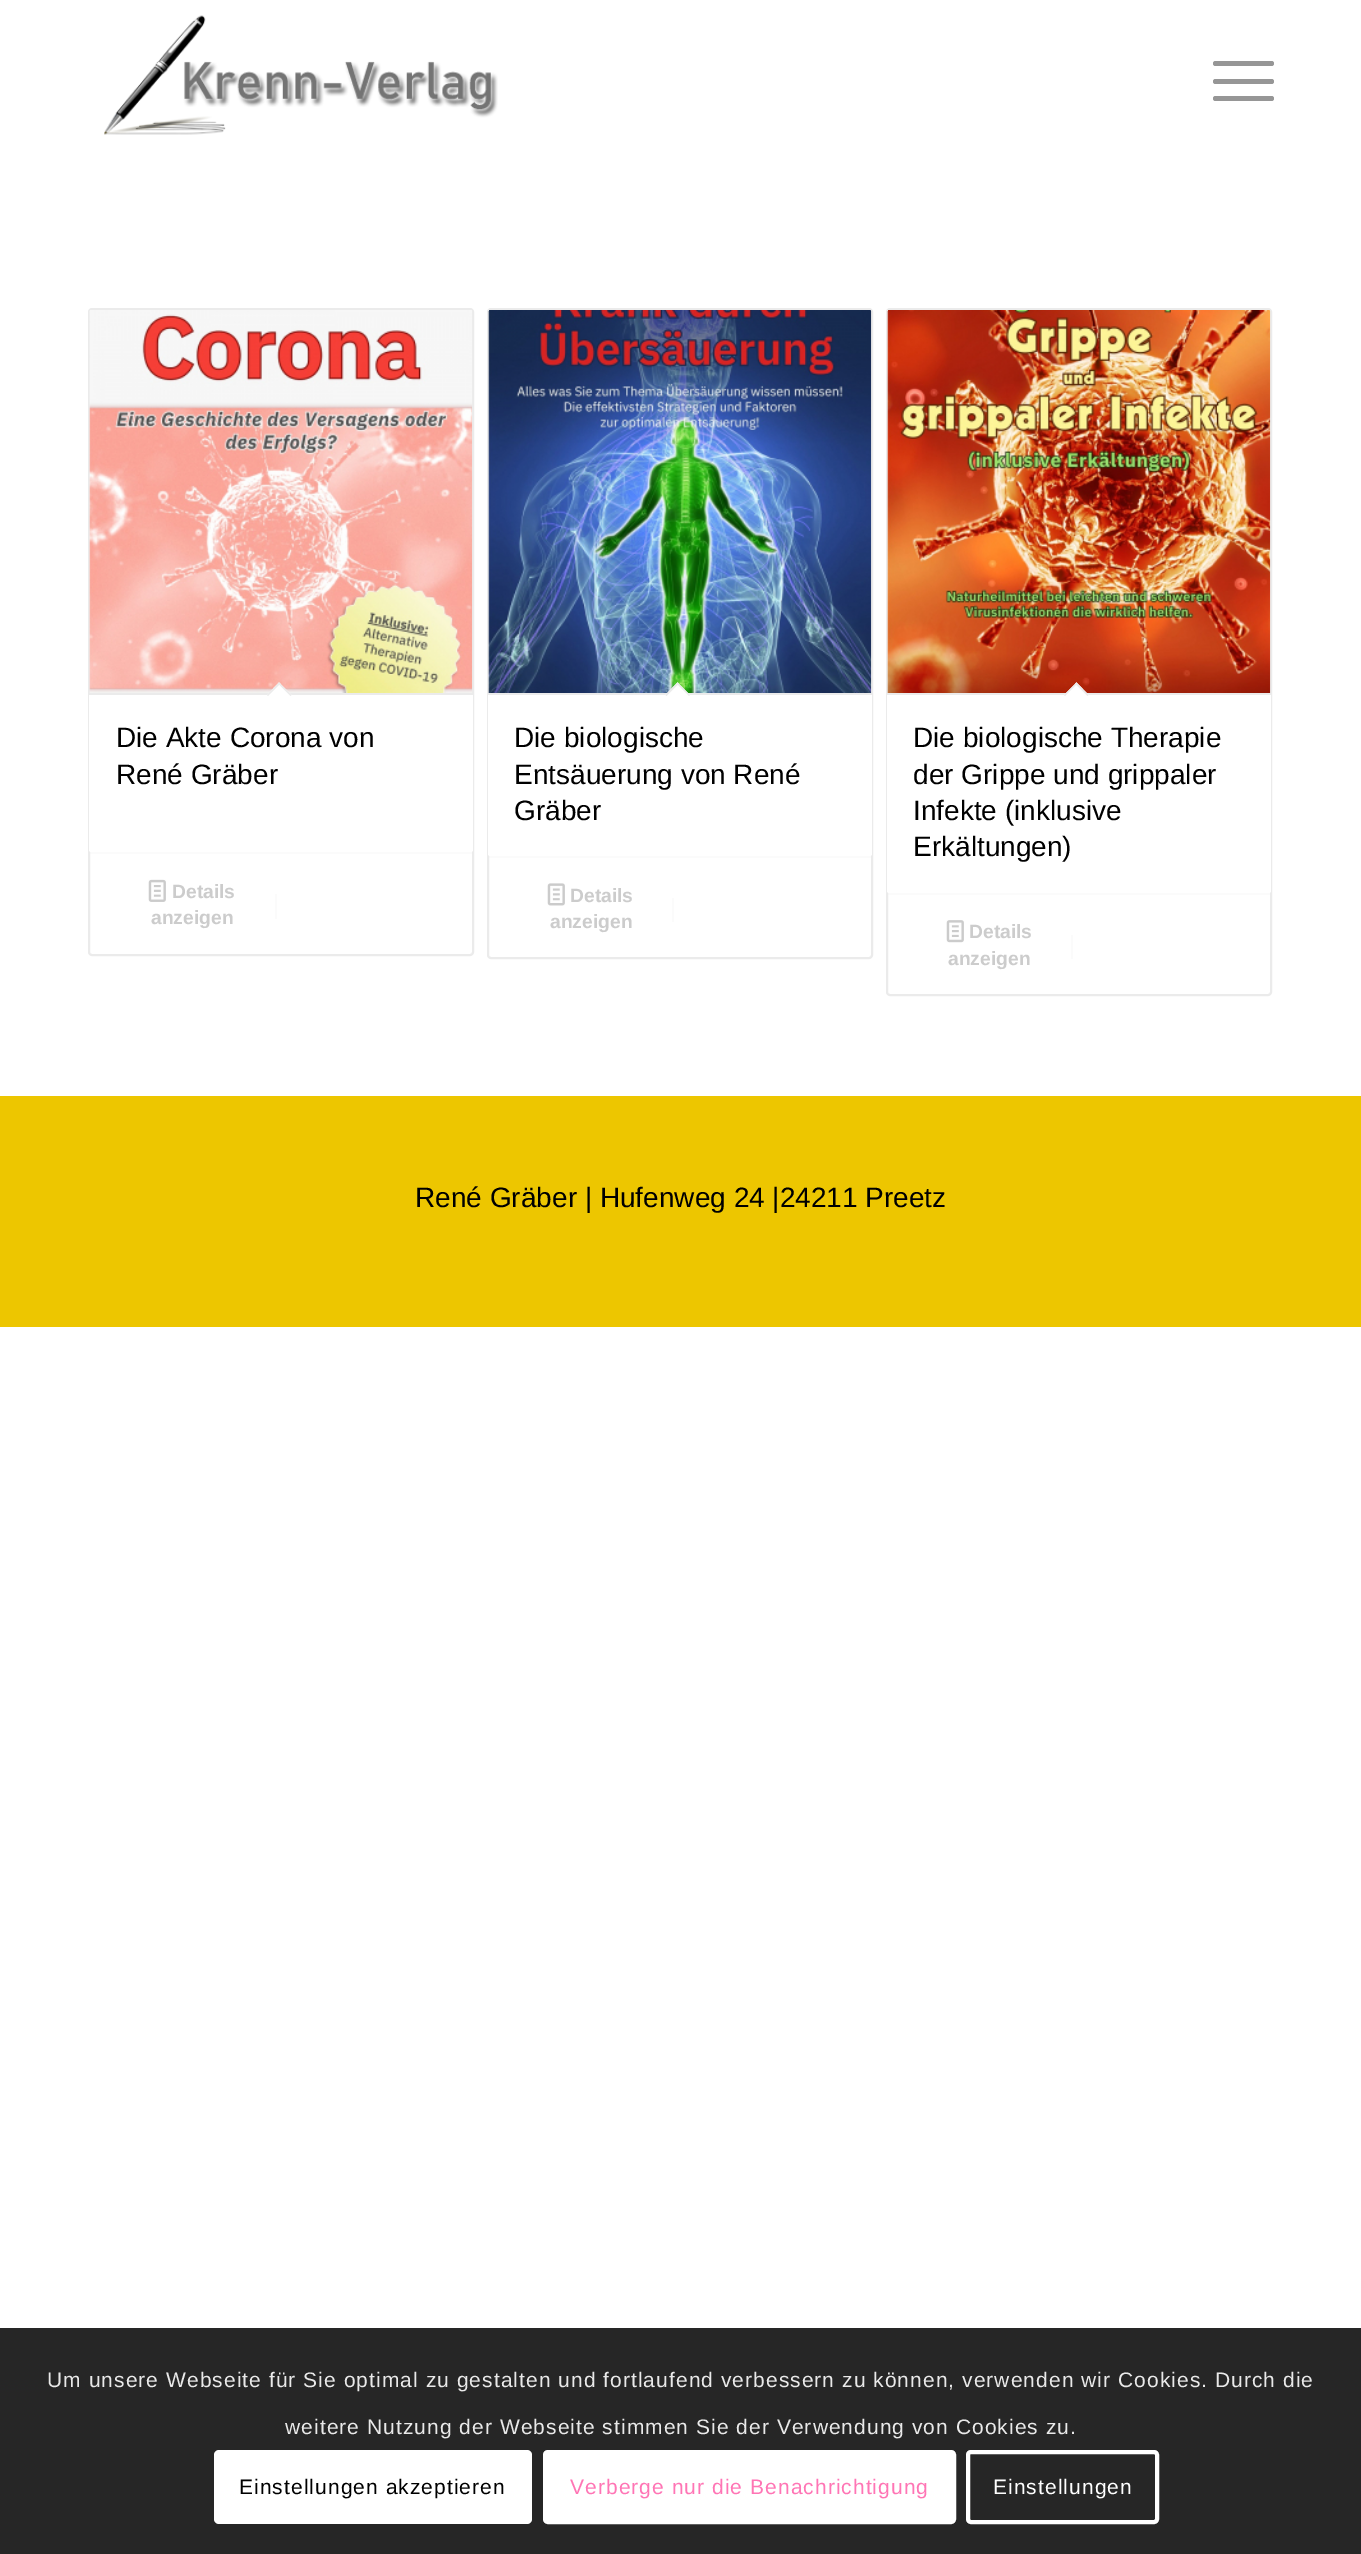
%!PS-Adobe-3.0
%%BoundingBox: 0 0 1361 2554
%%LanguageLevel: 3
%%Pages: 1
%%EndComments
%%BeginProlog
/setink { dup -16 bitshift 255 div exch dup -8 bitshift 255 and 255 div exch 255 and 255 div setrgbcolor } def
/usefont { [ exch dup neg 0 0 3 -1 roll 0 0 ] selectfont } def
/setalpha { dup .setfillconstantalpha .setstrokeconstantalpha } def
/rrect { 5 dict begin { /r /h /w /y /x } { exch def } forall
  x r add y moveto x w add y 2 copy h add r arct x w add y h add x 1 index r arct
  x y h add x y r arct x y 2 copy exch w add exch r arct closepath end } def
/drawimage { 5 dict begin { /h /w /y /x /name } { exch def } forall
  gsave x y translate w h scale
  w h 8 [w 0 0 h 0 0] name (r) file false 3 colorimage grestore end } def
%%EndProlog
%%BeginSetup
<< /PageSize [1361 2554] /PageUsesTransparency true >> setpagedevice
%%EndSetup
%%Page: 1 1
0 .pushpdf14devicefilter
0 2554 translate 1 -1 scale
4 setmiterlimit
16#FFFFFF setink
0 0 1361 2554 rectfill
(img1.raw) 104 15 394 120 drawimage
16#969696 setink
1213 79 61 5 2.5 rrect fill
1213 61 61 5 2.5 rrect fill
1213 96 61 5 2.5 rrect fill
16#EBEBEB setink
2 setlinewidth
89 309 384 646 3 rrect stroke
(img2.raw) 89 310 384 383 drawimage
16#FFFFFF setink
89 693 moveto 473 693 lineto 473 850 lineto 473 851 472 852 471 852 curveto 91 852 lineto 90 852 89 851 89 850 curveto closepath fill
16#EBEBEB setink
89 693 384 2 rectfill
16#FFFFFF setink
279 682.5 moveto 291.5 695 lineto 279 707 lineto 267 695 lineto closepath fill
16#EBEBEB setink
279 682.5 moveto 291.5 695 lineto 290.5 696 lineto 278 683.5 lineto closepath fill
279 682.5 moveto 280.5 683.5 lineto 268 696 lineto 267 695 lineto closepath fill
/LiberationSans-Regular 28 usefont
16#000000 setink
116 747 moveto (Die Akte Corona von) show
116 784 moveto (René Gräber) show
0.2 setalpha
16#EBEBEB setink
89 852 384 2 rectfill
1 setalpha
(img3.raw) 148 879 18 23 drawimage
/LiberationSans-Bold 19.25 usefont
16#CCCCCC setink
172 898 moveto (Details) show
151 924 moveto (anzeigen) show
16#FBFBFB setink
275 894 2 25 rectfill
16#EBEBEB setink
488 309 384 649 3 rrect stroke
(img4.raw) 488 310 384 383 drawimage
16#FFFFFF setink
488 693 moveto 872 693 lineto 872 854 lineto 872 855 871 856 870 856 curveto 490 856 lineto 489 856 488 855 488 854 curveto closepath fill
16#EBEBEB setink
488 693 384 2 rectfill
16#FFFFFF setink
677.5 682.5 moveto 690 695 lineto 677.5 707 lineto 665.5 695 lineto closepath fill
16#EBEBEB setink
677.5 682.5 moveto 690 695 lineto 689 696 lineto 676.5 683.5 lineto closepath fill
677.5 682.5 moveto 679 683.5 lineto 666.5 696 lineto 665.5 695 lineto closepath fill
/LiberationSans-Regular 28 usefont
16#000000 setink
[
    [(Die biologische) 514 747]
    [(Entsäuerung von René) 514 784]
    [(Gräber) 514 820]
] { aload pop moveto show } forall
0.2 setalpha
16#EBEBEB setink
488 856 384 2 rectfill
1 setalpha
(img5.raw) 547 883 18 23 drawimage
/LiberationSans-Bold 19.25 usefont
16#CCCCCC setink
570 902 moveto (Details) show
550 928 moveto (anzeigen) show
16#FBFBFB setink
672 898 2 24 rectfill
16#EBEBEB setink
887 309 384 686 3 rrect stroke
(img6.raw) 887 310 384 383 drawimage
16#FFFFFF setink
887 693 moveto 1271 693 lineto 1271 891 lineto 1271 892 1270 893 1269 893 curveto 889 893 lineto 888 893 887 892 887 891 curveto closepath fill
16#EBEBEB setink
887 693 384 2 rectfill
16#FFFFFF setink
1076.5 682.5 moveto 1088.5 695 lineto 1076.5 707 lineto 1064 695 lineto closepath fill
16#EBEBEB setink
1076.5 682.5 moveto 1088.5 695 lineto 1087.5 696 lineto 1075 683.5 lineto closepath fill
1076.5 682.5 moveto 1077.5 683.5 lineto 1065 696 lineto 1064 695 lineto closepath fill
/LiberationSans-Regular 28 usefont
16#000000 setink
[
    [(Die biologische Therapie) 913 747]
    [(der Grippe und grippaler) 913 784]
    [(Infekte \(inklusive) 913 820]
    [(Erkältungen\)) 913 856]
] { aload pop moveto show } forall
0.2 setalpha
16#EBEBEB setink
887 893 384 2 rectfill
1 setalpha
(img7.raw) 946 920 18 23 drawimage
/LiberationSans-Bold 19.25 usefont
16#CCCCCC setink
969 938 moveto (Details) show
948 965 moveto (anzeigen) show
16#FBFBFB setink
1071 935 2 24 rectfill
16#EDC600 setink
0 1096 1361 231 rectfill
/LiberationSans-Regular 28 usefont
16#000000 setink
415 1207 moveto (René Gräber | Hufenweg 24 |24211 Preetz) show
16#262626 setink
0 2328 1361 226 rectfill
/LiberationSans-Regular 21 usefont
16#E9E9E9 setink
47 2387 moveto 1.05 0 (Um unsere Webseite für Sie optimal zu gestalten und fortlaufend verbessern zu können, verwenden wir Cookies. Durch die) ashow
285 2434 moveto 1.05 0 (weitere Nutzung der Webseite stimmen Sie der Verwendung von Cookies zu.) ashow
16#FFFFFF setink
214 2450 318 74 5 rrect fill
16#000000 setink
239 2494 moveto 1.05 0 (Einstellungen akzeptieren) ashow
16#FFFFFF setink
545 2452 409 70 3 rrect gsave fill grestore
4 setlinewidth
stroke
16#FF75B5 setink
570 2494 moveto 1.05 0 (Verberge nur die Benachrichtigung) ashow
16#FFFFFF setink
968 2452 189 70 3 rrect stroke
993 2494 moveto 1.05 0 (Einstellungen) ashow
.poppdf14devicefilter showpage
%%EOF
